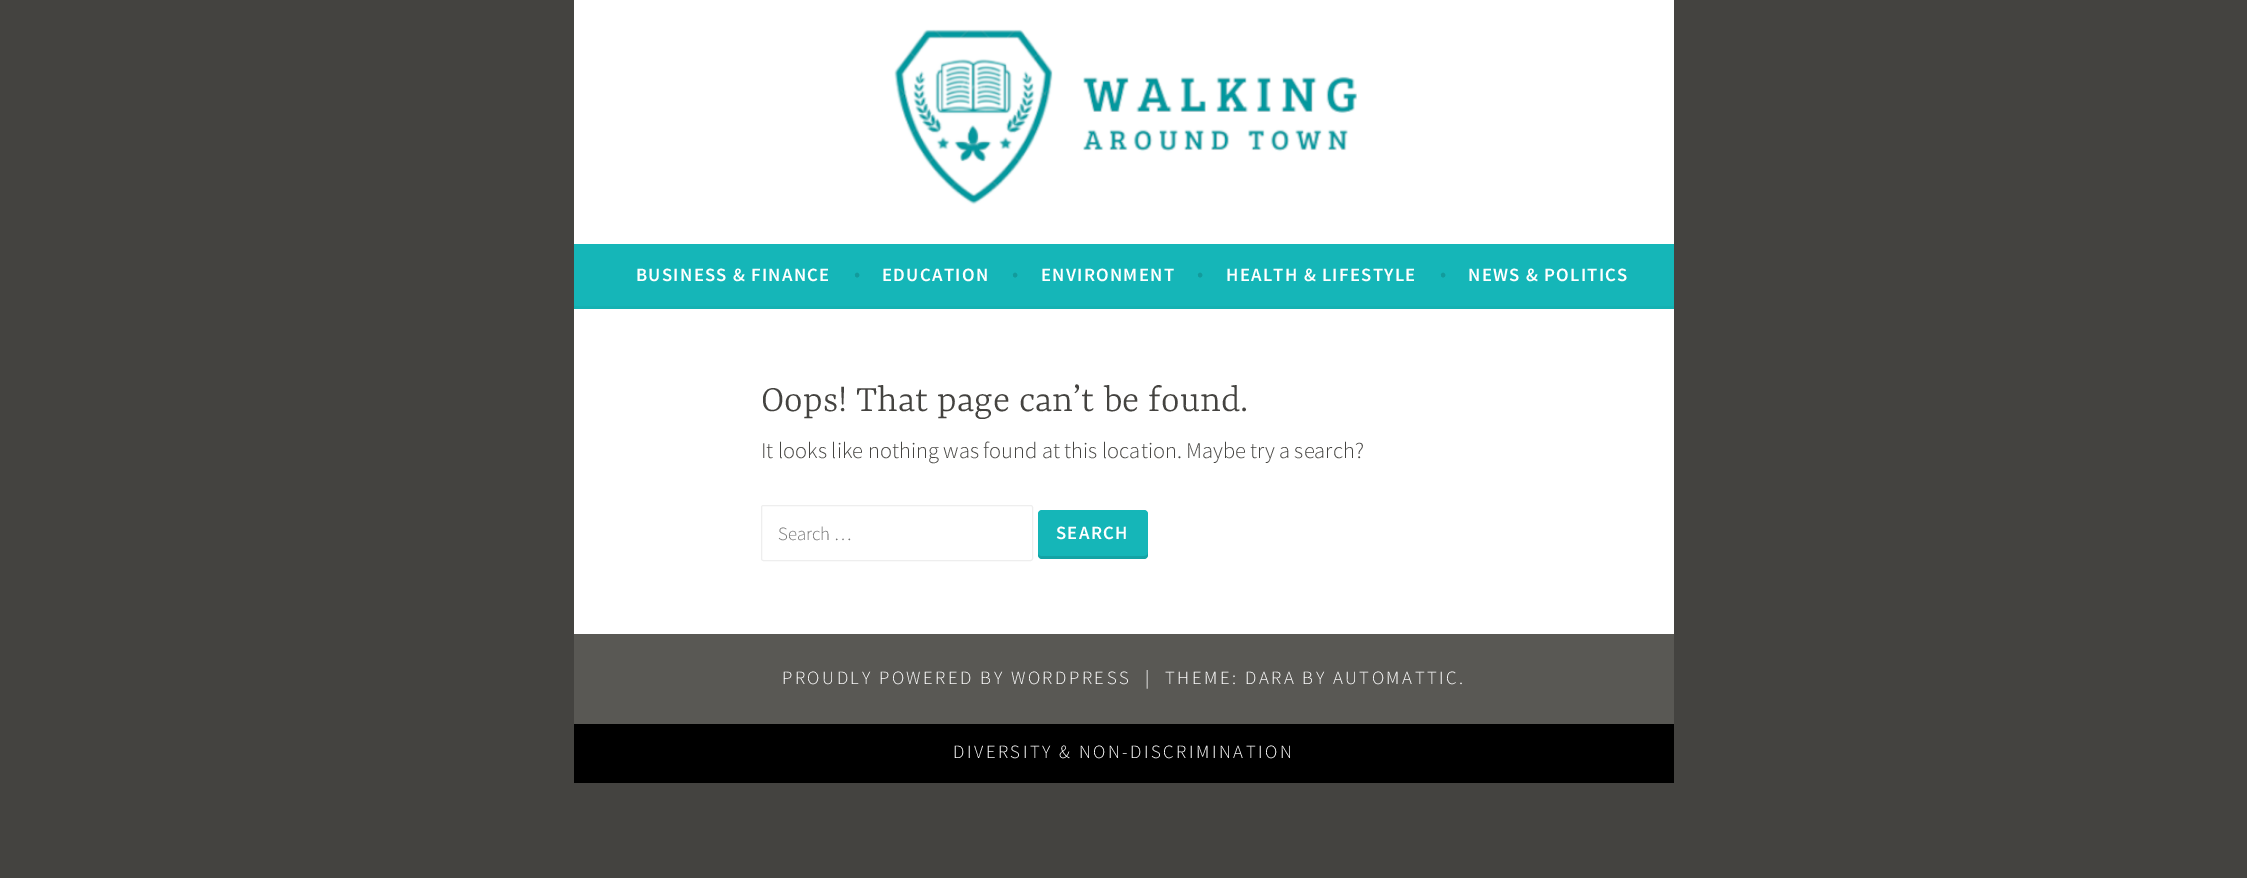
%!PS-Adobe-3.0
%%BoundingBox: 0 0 2247 878
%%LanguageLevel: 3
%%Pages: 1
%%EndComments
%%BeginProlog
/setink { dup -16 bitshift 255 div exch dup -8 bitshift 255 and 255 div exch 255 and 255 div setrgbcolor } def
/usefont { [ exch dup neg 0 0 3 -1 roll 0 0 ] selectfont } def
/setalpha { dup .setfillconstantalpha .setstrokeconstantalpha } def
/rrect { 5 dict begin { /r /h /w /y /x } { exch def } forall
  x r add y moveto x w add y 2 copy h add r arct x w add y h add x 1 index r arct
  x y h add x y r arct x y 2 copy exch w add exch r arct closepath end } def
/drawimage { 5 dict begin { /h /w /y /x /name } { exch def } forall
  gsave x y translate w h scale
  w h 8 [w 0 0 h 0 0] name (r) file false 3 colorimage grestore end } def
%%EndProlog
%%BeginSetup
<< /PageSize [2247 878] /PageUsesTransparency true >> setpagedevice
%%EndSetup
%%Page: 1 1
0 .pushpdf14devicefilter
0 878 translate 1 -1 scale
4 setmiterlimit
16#444340 setink
0 0 2247 878 rectfill
16#FFFFFF setink
574 0 1100 244 rectfill
(img1.raw) 894 29 463 176 drawimage
16#15B6B8 setink
574 244 1100 62 rectfill
16#14B1B2 setink
574 306 1100 3 rectfill
/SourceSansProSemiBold-SemiBold 18.75 usefont
16#FFFFFF setink
636 281 moveto 1.25 0 (BUSINESS & FINANCE) ashow
/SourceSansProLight-Light 22.5 usefont
16#129B9C setink
854 281 moveto (•) show
/SourceSansProSemiBold-SemiBold 18.75 usefont
16#FFFFFF setink
882 281 moveto 1.25 0 (EDUCATION) ashow
/SourceSansProLight-Light 22.5 usefont
16#129B9C setink
1012 281 moveto (•) show
/SourceSansProSemiBold-SemiBold 18.75 usefont
16#FFFFFF setink
1041 281 moveto 1.25 0 (ENVIRONMENT) ashow
/SourceSansProLight-Light 22.5 usefont
16#129B9C setink
1197 281 moveto (•) show
/SourceSansProSemiBold-SemiBold 18.75 usefont
16#FFFFFF setink
1226 281 moveto 1.25 0 (HEALTH & LIFESTYLE) ashow
/SourceSansProLight-Light 22.5 usefont
16#129B9C setink
1440 281 moveto (•) show
/SourceSansProSemiBold-SemiBold 18.75 usefont
16#FFFFFF setink
1468 281 moveto 1.25 0 (NEWS & POLITICS) ashow
574 309 1100 325 rectfill
/Yrsa-Light 40 usefont
16#444340 setink
761 411 moveto (Oops! That page can’t be found.) show
/SourceSansProLight-Light 22.5 usefont
761 458 moveto (It looks like nothing was found at this location. Maybe try a search?) show
16#EEEEEE setink
761.5 505.5 271 55 2 rrect stroke
/SourceSansProLight-Light 18.75 usefont
16#757575 setink
778 540 moveto (Search …) show
16#15B6B8 setink
1038 510 110 49 4 rrect fill
0.1 setalpha
16#000000 setink
1038 552 moveto 1038 555 lineto 1038 557 1040 559 1042 559 curveto 1144 559 lineto 1146 559 1148 557 1148 555 curveto 1148 552 lineto 1148 555 1146 556 1144 556 curveto 1041 556 lineto 1039 556 1038 555 1038 552 curveto closepath fill
/SourceSansProSemiBold-SemiBold 18.75 usefont
1 setalpha
16#FFFFFF setink
1056 539 moveto 1.25 0 (SEARCH) ashow
16#595854 setink
574 634 1100 90 rectfill
/SourceSansProLight-Light 18.75 usefont
16#FFFFFF setink
782 684 moveto 2.5 0 (PROUDLY POWERED BY WORDPRESS) ashow
1145 684 moveto 2.5 0 (|) ashow
1165 684 moveto 2.5 0 (THEME: DARA BY AUTOMATTIC.) ashow
16#000000 setink
574 724 1100 59 rectfill
16#FFFFFF setink
953 758 moveto 2.5 0 (DIVERSITY & NON-DISCRIMINATION) ashow
.poppdf14devicefilter showpage
%%EOF
